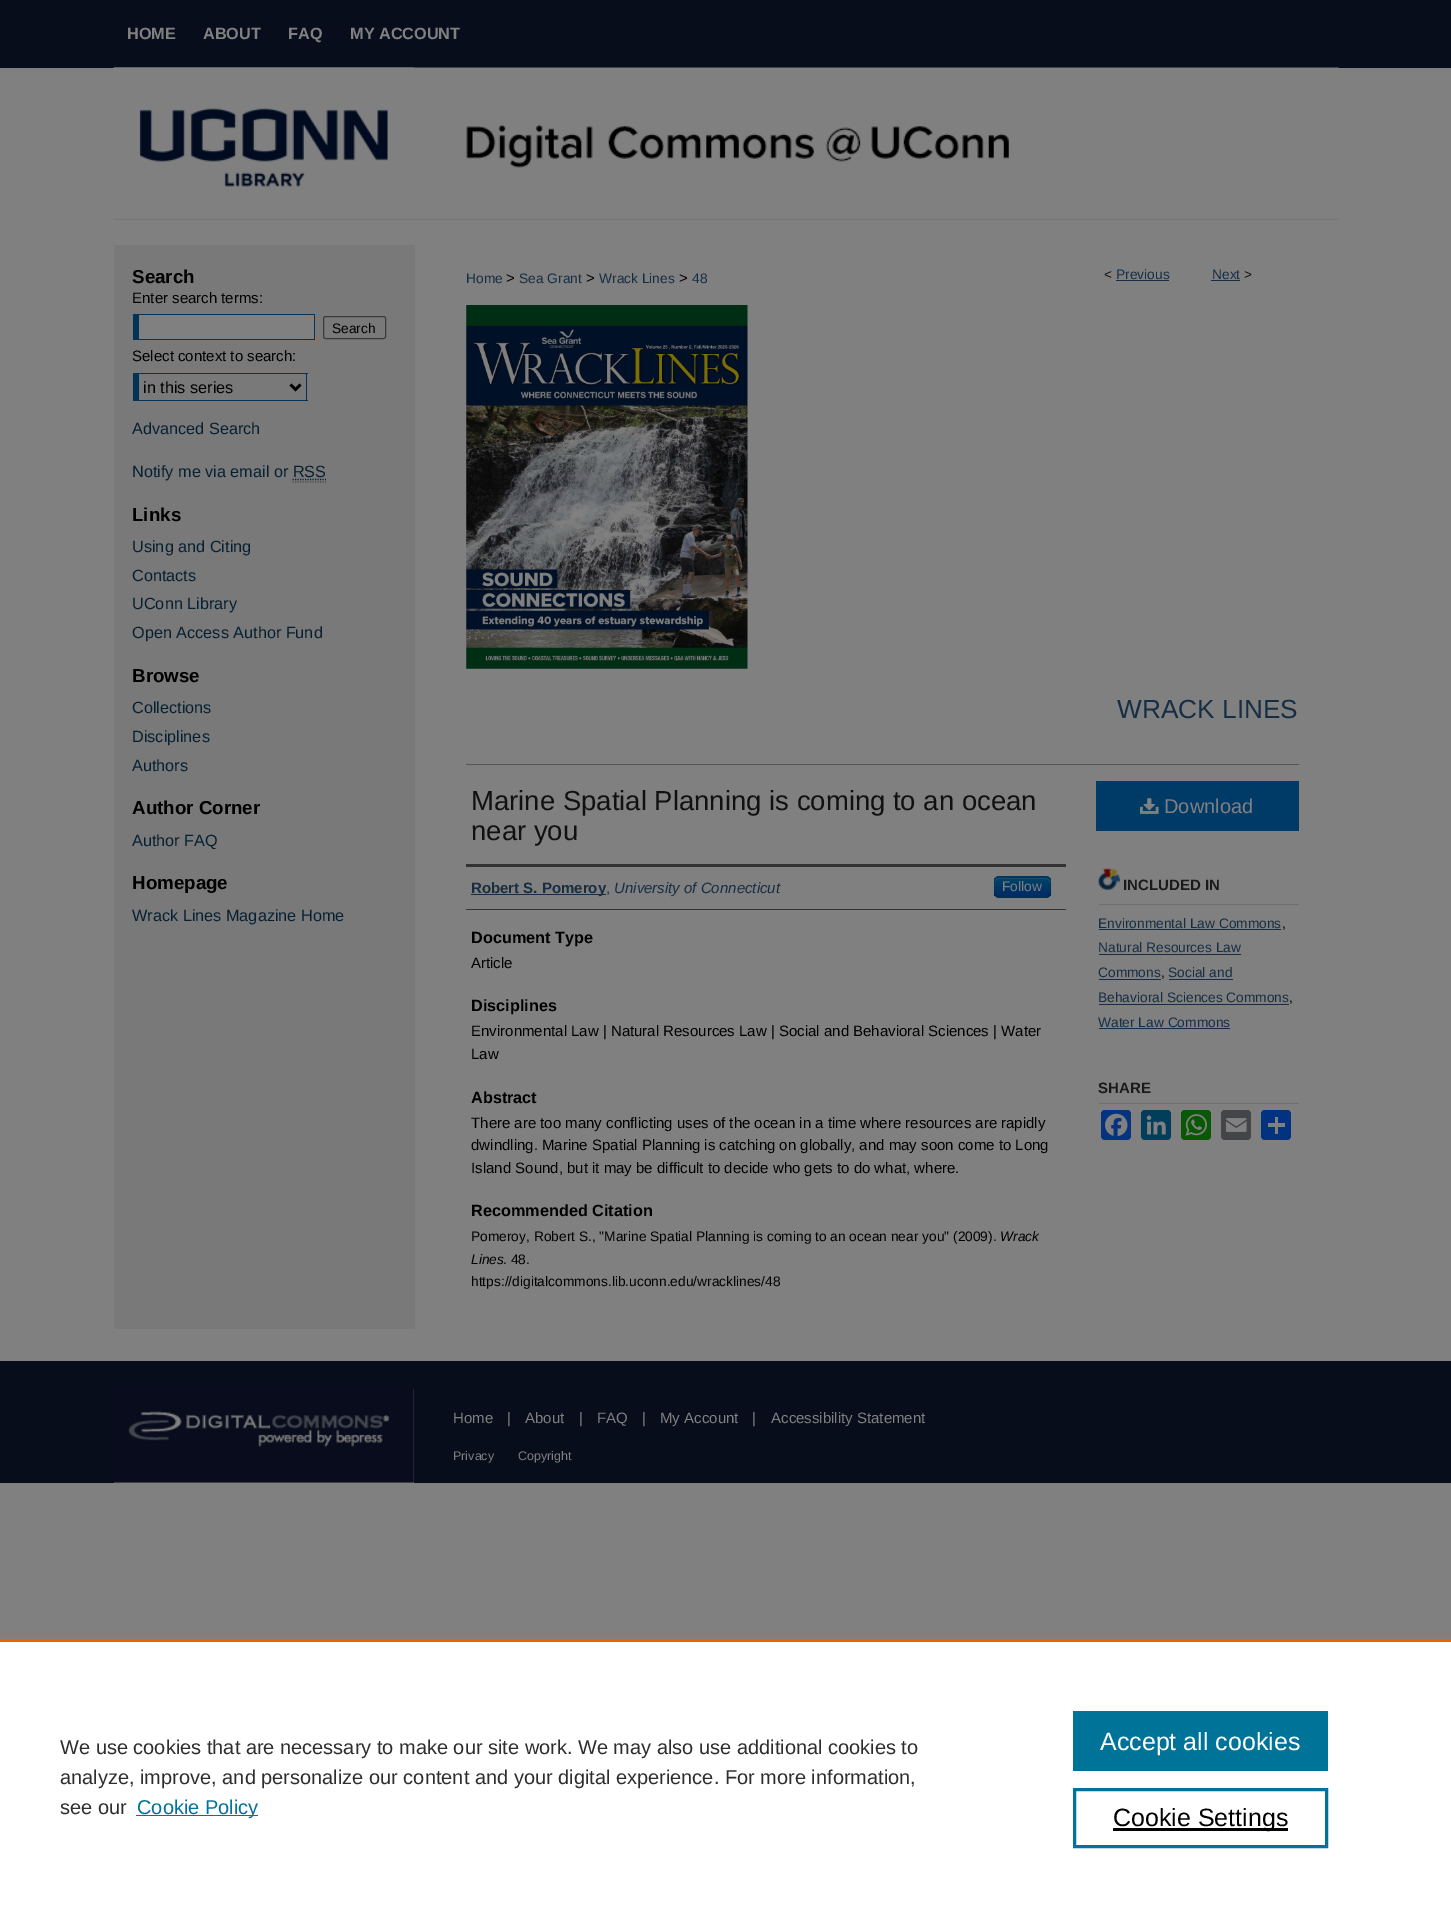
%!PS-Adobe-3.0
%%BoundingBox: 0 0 1451 1913
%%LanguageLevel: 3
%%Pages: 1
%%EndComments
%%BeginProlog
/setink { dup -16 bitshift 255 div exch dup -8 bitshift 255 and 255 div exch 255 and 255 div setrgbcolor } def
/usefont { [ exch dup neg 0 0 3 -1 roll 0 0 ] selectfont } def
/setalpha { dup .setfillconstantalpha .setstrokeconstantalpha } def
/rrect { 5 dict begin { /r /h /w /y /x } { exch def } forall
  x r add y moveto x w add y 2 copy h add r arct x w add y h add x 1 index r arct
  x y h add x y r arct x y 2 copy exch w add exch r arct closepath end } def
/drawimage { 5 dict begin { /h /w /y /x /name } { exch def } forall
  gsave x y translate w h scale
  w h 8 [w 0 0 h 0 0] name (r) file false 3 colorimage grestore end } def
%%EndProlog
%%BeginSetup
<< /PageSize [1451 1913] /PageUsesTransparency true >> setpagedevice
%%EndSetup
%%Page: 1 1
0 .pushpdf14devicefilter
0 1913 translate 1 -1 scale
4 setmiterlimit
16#808080 setink
0 0 1451 1913 rectfill
16#080D1C setink
0 0 1451 68 rectfill
0 1361 1451 122 rectfill
/LiberationSans-Bold 16.25 usefont
16#808080 setink
[
    [(HOME) 127 39]
    [(ABOUT) 203 39]
    [(FAQ) 288 39]
    [(MY ACCOUNT) 350 39]
] { aload pop moveto show } forall
(img1.raw) 113 67 1226 153 drawimage
(img2.raw) 113 67 301 120 drawimage
16#79797A setink
114 245 301 1084 rectfill
/LiberationSans-Bold 18.75 usefont
16#000000 setink
132 283 moveto (Search) show
/LiberationSans-Regular 15 usefont
132 303 moveto (Enter search terms:) show
[
    [139 315 175 24 16#808080]
    [133 314 182 1 16#033356]
    [314 314 1 26 16#033356]
    [133 339 182 1 16#033356]
    [133 314 6 26 16#033356]
] { aload pop setink rectfill } forall
16#3B3B3B setink
323.5 316.5 62 22 2 rrect stroke
/LiberationSans-Regular 13.75 usefont
16#000000 setink
332 333 moveto (Search) show
/LiberationSans-Regular 15 usefont
132 361 moveto (Select context to search:) show
[
    [133 373 175 1 16#033356]
    [306 373 1 28 16#033356]
    [133 400 175 1 16#033356]
    [133 373 6 28 16#033356]
] { aload pop setink rectfill } forall
16#000000 setink
2.5 setlinewidth
290.5 384.5 moveto 295.5 389.5 lineto 300.5 384.5 lineto stroke
/LiberationSans-Regular 16.25 usefont
143 393 moveto (in this series) show
16#072031 setink
132 434 moveto (Advanced Search) show
132 477 moveto (Notify me via email or RSS) show
1.2 setlinewidth
[1.25 1.25] 0 setdash
292.5 479.5 moveto 326 479.5 lineto stroke
16#4D4D4D setink
292.5 482 moveto 326 482 lineto stroke
/LiberationSans-Bold 18.75 usefont
16#000000 setink
132 521 moveto (Links) show
/LiberationSans-Regular 16.25 usefont
16#072031 setink
[
    [(Using and Citing) 132 552]
    [(Contacts) 132 581]
    [(UConn Library) 132 609]
    [(Open Access Author Fund) 132 638]
] { aload pop moveto show } forall
/LiberationSans-Bold 18.75 usefont
16#000000 setink
132 682 moveto (Browse) show
/LiberationSans-Regular 16.25 usefont
16#072031 setink
[
    [(Collections) 132 713]
    [(Disciplines) 132 742]
    [(Authors) 132 771]
] { aload pop moveto show } forall
/LiberationSans-Bold 18.75 usefont
16#000000 setink
132 814 moveto (Author Corner) show
/LiberationSans-Regular 16.25 usefont
16#072031 setink
132 846 moveto (Author FAQ) show
/LiberationSans-Bold 18.75 usefont
16#000000 setink
132 889 moveto (Homepage) show
/LiberationSans-Regular 16.25 usefont
16#072031 setink
132 921 moveto (Wrack Lines Magazine Home) show
/LiberationSans-Regular 13.75 usefont
16#162D43 setink
466 283 moveto (Home) show
/LiberationSans-Regular 15 usefont
16#000000 setink
506 283 moveto (>) show
/LiberationSans-Regular 13.75 usefont
16#162D43 setink
519 283 moveto (Sea Grant) show
/LiberationSans-Regular 15 usefont
16#000000 setink
586 283 moveto (>) show
/LiberationSans-Regular 13.75 usefont
16#162D43 setink
599 283 moveto (Wrack Lines) show
/LiberationSans-Regular 15 usefont
16#000000 setink
679 283 moveto (>) show
/LiberationSans-Regular 13.75 usefont
16#162D43 setink
692 283 moveto (48) show
16#111111 setink
1104 279 moveto (<) show
16#162D43 setink
1116 279 moveto (Previous) show
1116 280 53 1 rectfill
1212 279 moveto (Next) show
1211 280 29 1 rectfill
16#111111 setink
1244 279 moveto (>) show
(img3.raw) 466 305 282 364 drawimage
/LiberationSans-Regular 26.25 usefont
16#162D43 setink
1117 718 moveto (WRACK LINES) show
16#555555 setink
466 764 833 1 rectfill
/LiberationSans-Regular 27.5 usefont
16#111111 setink
471 810 moveto (Marine Spatial Planning is coming to an ocean) show
471 840 moveto (near you) show
[
    [466 864 600 3 16#333333]
    [466 909 600 1 16#333333]
    [471 894 135 1 16#162D43]
] { aload pop setink rectfill } forall
/LiberationSans-Bold 15 usefont
471 893 moveto (Robert S. Pomeroy) show
/LiberationSans-Regular 15 usefont
606 893 moveto (,) show
/LiberationSans-Italic 15 usefont
614 893 moveto (University of Connecticut) show
16#003A66 setink
994 876 57 22 5 rrect fill
gsave
994 876 57 22 5 rrect clip newpath
gsave 994 878 moveto 1051 878 lineto 1051 896 lineto 994 896 lineto closepath clip newpath
<< /ShadingType 2 /ColorSpace /DeviceRGB /Coords [1023 878 1023 896] /Extend [true true] /Function << /FunctionType 2 /Domain [0 1] /C0 [0 0.267 0.4] /C1 [0 0.169 0.4] /N 1 >> >> shfill grestore
grestore
0.2 setalpha
16#808080 setink
999 879 moveto 1046 879 lineto 1048 880 lineto 1051 882 1050 889 1050 892 curveto 1050 879 1053 878 1038 878 curveto 1007 878 lineto 998 878 995 876 995 885 curveto 995 893 lineto 995 890 993 879 999 879 curveto closepath fill
0.25 setalpha
16#000000 setink
[] 0 setdash
1049.5 895.5 moveto 1048.5 896.5 1047.5 897 1046 897 curveto 999 897 lineto 997.5 897 996.5 896.5 995.5 895.5 curveto stroke
0.1 setalpha
995.5 895.5 moveto 993.5 893.5 994.5 889.5 994.5 887 curveto 994.5 876 995 877 1006.5 877 curveto 1038.5 877 lineto 1050 877 1050.5 876 1050.5 887 curveto 1050.5 889.5 1051.5 893.5 1049.5 895.5 curveto stroke
/LiberationSans-Regular 13.75 usefont
1 setalpha
16#808080 setink
1002 891 moveto (Follow) show
/LiberationSans-Bold 16.25 usefont
16#000000 setink
471 943 moveto (Document Type) show
/LiberationSans-Regular 15 usefont
471 968 moveto (Article) show
/LiberationSans-Bold 16.25 usefont
471 1011 moveto (Disciplines) show
/LiberationSans-Regular 15 usefont
471 1036 moveto (Environmental Law | Natural Resources Law | Social and Behavioral Sciences | Water) show
471 1059 moveto (Law) show
/LiberationSans-Bold 16.25 usefont
471 1103 moveto (Abstract) show
/LiberationSans-Regular 15 usefont
[
    [(There are too many conflicting uses of the ocean in a time where resources are rapidly) 471 1128]
    [(dwindling. Marine Spatial Planning is catching on globally, and may soon come to Long) 471 1150]
    [(Island Sound, but it may be difficult to decide who gets to do what, where.) 471 1173]
] { aload pop moveto show } forall
/LiberationSans-Bold 16.25 usefont
471 1216 moveto (Recommended Citation) show
/LiberationSans-Regular 13.75 usefont
471 1241 moveto (Pomeroy, Robert S., "Marine Spatial Planning is coming to an ocean near you" \(2009\).) show
/LiberationSans-Italic 13.75 usefont
1000 1241 moveto (Wrack) show
471 1264 moveto (Lines) show
/LiberationSans-Regular 13.75 usefont
503 1264 moveto (. 48.) show
471 1286 moveto (https://digitalcommons.lib.uconn.edu/wracklines/48) show
16#003A66 setink
1096 781 203 50 rectfill
(img4.raw) 1140 798 19 16 drawimage
/LiberationSans-Regular 20 usefont
16#808080 setink
1164 813 moveto (Download) show
(img5.raw) 1098 868 22 22 drawimage
16#6F6F6F setink
1099 904 200 1 rectfill
/LiberationSans-Bold 15 usefont
16#1A1A1A setink
1123 890 moveto (INCLUDED IN) show
/LiberationSans-Regular 13.75 usefont
16#162D43 setink
1098 928 moveto (Environmental Law Commons) show
1099 929 182 1 rectfill
16#000000 setink
1282 928 moveto (,) show
16#162D43 setink
1098 952 moveto (Natural Resources Law) show
1099 954 142 1 rectfill
1098 977 moveto (Commons) show
1099 979 62 1 rectfill
16#000000 setink
1161 977 moveto (,) show
16#162D43 setink
1168 977 moveto (Social and) show
1169 979 64 1 rectfill
1098 1002 moveto (Behavioral Sciences Commons) show
1099 1004 190 1 rectfill
16#000000 setink
1289 1002 moveto (,) show
16#162D43 setink
1098 1027 moveto (Water Law Commons) show
1099 1028 131 1 rectfill
16#6F6F6F setink
1099 1103 200 1 rectfill
/LiberationSans-Bold 15 usefont
16#1A1A1A setink
1098 1093 moveto (SHARE) show
16#043380 setink
1101 1110 30 30 4 rrect fill
(img6.raw) 1105 1113 23 24 drawimage
16#003E5B setink
1141 1110 30 30 4 rrect fill
(img7.raw) 1146 1115 20 20 drawimage
16#095805 setink
1181 1110 30 30 4 rrect fill
(img8.raw) 1185 1114 22 22 drawimage
16#444548 setink
1221 1110 30 30 4 rrect fill
(img9.raw) 1225 1118 22 14 drawimage
16#013380 setink
1261 1110 30 30 4 rrect fill
[
    [1275 1117 3 17 16#808080]
    [1268 1123 17 4 16#808080]
    [114 1389 300 94 16#737373]
] { aload pop setink rectfill } forall
(img10.raw) 114 1389 300 94 drawimage
/LiberationSans-Regular 15 usefont
16#808080 setink
[
    [(Home) 453 1423]
    [(|) 507 1423]
    [(About) 525 1423]
    [(|) 579 1423]
    [(FAQ) 597 1423]
    [(|) 642 1423]
    [(My Account) 660 1423]
    [(|) 752 1423]
    [(Accessibility Statement) 771 1423]
] { aload pop moveto show } forall
/LiberationSans-Regular 12.5 usefont
453 1460 moveto (Privacy) show
518 1460 moveto (Copyright) show
16#FFFFFF setink
0 1642 1451 271 rectfill
16#EB6500 setink
0 1639 1451 3 rectfill
/LiberationSans-Regular 20 usefont
16#2E2E2E setink
[
    [(We use cookies that are necessary to make our site work. We may also use additional cookies to) 60 1754]
    [(analyze, improve, and personalize our content and your digital experience. For more information,) 60 1784]
    [(see our) 60 1814]
] { aload pop moveto show } forall
16#007398 setink
136 1815 122 1 rectfill
137 1814 moveto (Cookie Policy) show
1073 1711 255 60 rectfill
/LiberationSans-Regular 25 usefont
16#FFFFFF setink
1100 1750 moveto (Accept all cookies) show
16#007398 setink
3 setlinewidth
1074.5 1789.5 252 57 rectstroke
16#000000 setink
1113 1828 175 3 rectfill
1113 1826 moveto (Cookie Settings) show
.poppdf14devicefilter showpage
%%EOF
